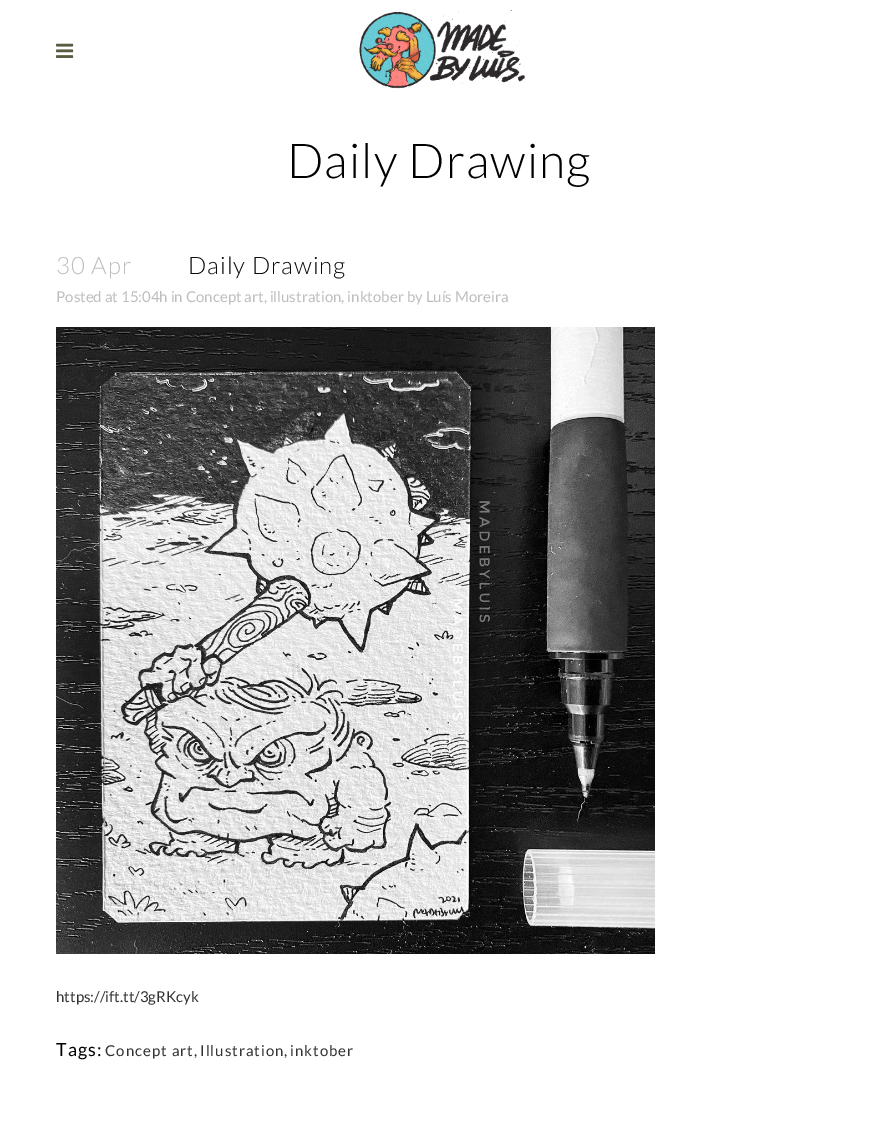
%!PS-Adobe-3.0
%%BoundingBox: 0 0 879 1128
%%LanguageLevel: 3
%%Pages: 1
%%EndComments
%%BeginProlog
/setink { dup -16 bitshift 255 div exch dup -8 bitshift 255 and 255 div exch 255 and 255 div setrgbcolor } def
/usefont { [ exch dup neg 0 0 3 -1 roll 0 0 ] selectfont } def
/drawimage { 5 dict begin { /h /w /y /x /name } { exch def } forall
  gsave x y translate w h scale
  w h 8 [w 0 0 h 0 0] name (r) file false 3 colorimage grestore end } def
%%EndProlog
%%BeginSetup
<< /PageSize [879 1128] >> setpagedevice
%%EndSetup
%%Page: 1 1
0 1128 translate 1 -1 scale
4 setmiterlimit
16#FFFFFF setink
0 0 879 1128 rectfill
(img1.raw) 56 43 18 15 drawimage
(img2.raw) 359 10 166 79 drawimage
/Lato-Light 48 usefont
16#000000 setink
287 178 moveto 1 0 (Daily Drawing) ashow
/Lato-Light 24 usefont
16#BEBEBE setink
56 274 moveto 1 0 (30 Apr) ashow
16#0A0A0A setink
188 274 moveto 1 0 (Daily Drawing) ashow
/Lato-Regular 15 usefont
16#BEBEBE setink
56 302 moveto (Posted at 15:04h in Concept art, illustration, inktober by Luís Moreira) show
(img3.raw) 56 327 599 627 drawimage
16#333333 setink
56 1002 moveto (https://ift.tt/3gRKcyk) show
/Lato-Regular 18 usefont
16#000000 setink
56 1056 moveto 1 0 (Tags:) ashow
/Lato-Regular 15 usefont
16#333333 setink
105 1056 moveto 1 0 (Concept art) ashow
194 1056 moveto (,) show
200 1056 moveto 1 0 (Illustration) ashow
284 1056 moveto (,) show
290 1056 moveto 1 0 (inktober) ashow
showpage
%%EOF
